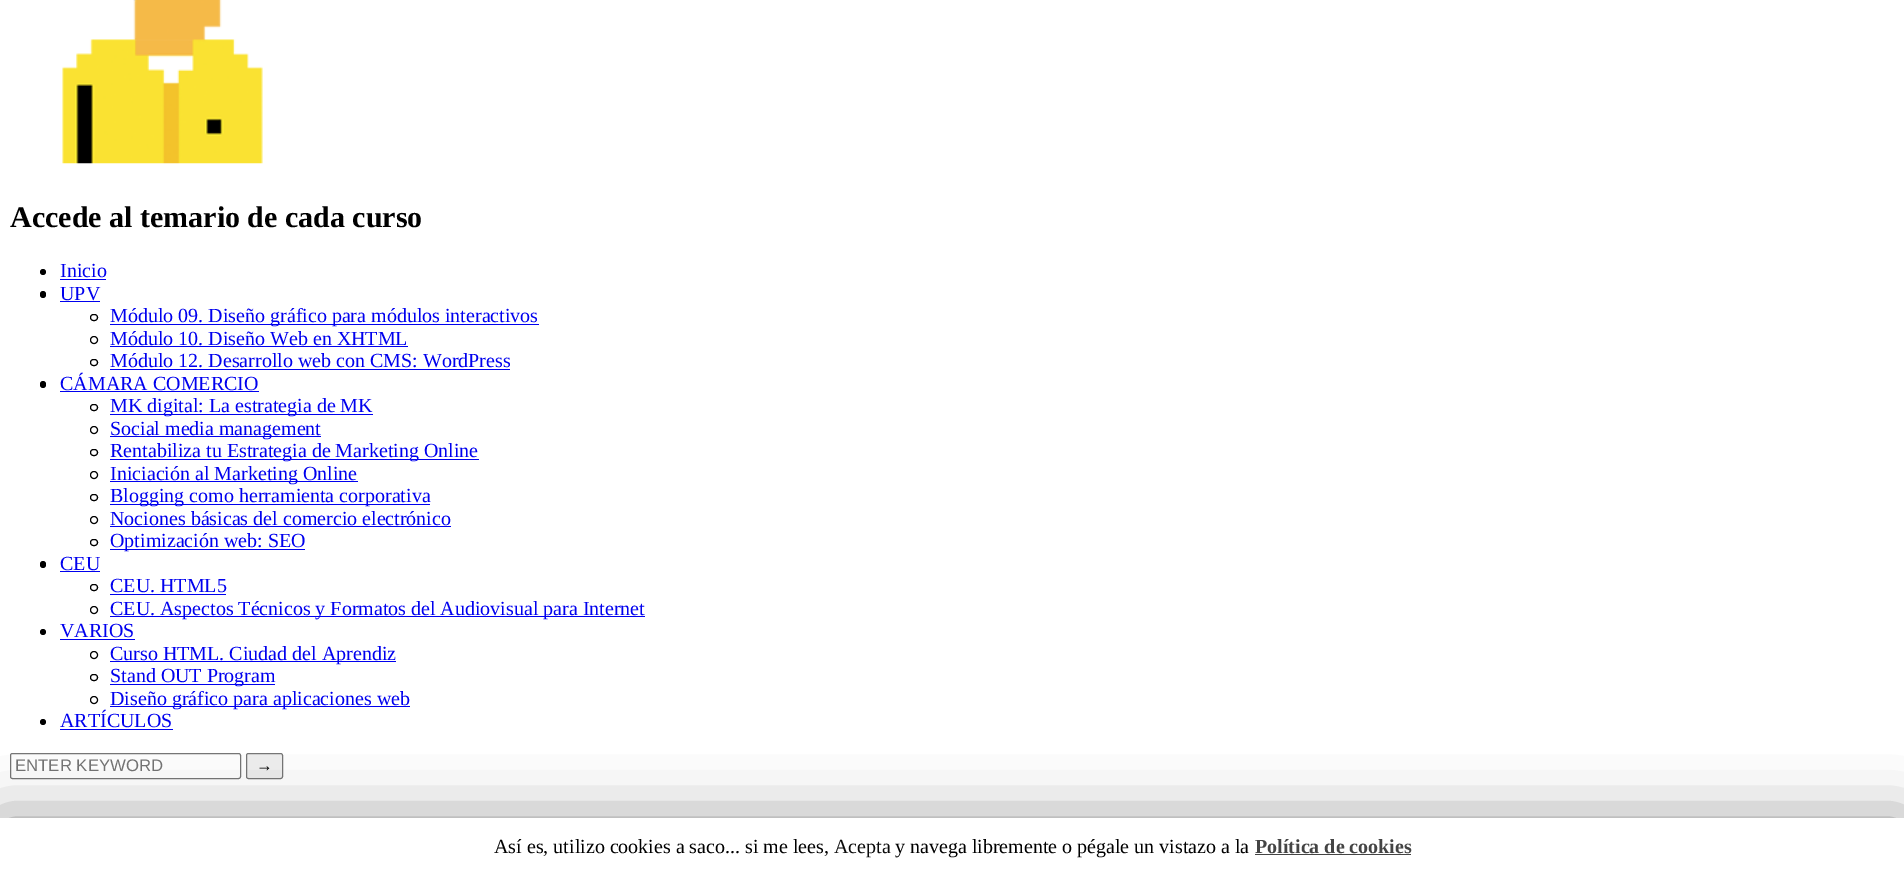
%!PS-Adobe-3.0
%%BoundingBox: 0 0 1904 873
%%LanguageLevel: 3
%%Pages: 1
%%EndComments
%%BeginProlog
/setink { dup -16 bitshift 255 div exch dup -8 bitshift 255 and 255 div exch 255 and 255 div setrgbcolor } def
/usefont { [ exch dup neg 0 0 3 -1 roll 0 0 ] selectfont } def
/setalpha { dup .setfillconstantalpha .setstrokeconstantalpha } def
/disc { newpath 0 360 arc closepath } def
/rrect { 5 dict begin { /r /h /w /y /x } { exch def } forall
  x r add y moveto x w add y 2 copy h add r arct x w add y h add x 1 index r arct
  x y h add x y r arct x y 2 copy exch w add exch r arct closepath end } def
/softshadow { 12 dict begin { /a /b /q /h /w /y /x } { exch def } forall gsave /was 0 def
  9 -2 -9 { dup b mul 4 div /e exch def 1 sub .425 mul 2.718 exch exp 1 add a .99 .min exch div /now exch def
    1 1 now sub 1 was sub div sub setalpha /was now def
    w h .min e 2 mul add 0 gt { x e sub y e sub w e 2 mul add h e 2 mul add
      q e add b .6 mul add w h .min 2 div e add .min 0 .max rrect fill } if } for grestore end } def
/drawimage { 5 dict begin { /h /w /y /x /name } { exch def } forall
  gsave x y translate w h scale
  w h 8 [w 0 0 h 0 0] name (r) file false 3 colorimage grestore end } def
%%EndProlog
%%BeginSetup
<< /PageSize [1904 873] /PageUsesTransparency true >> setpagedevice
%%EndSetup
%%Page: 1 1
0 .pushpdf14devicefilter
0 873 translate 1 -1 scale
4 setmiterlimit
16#FFFFFF setink
0 0 1904 873 rectfill
(img1.raw) 62 0 201 164 drawimage
/LiberationSerif-Bold 30 usefont
16#000000 setink
10 227 moveto (Accede al temario de cada curso) show
43 272 3 disc fill
/LiberationSerif-Regular 20 usefont
16#0000EE setink
60 277 moveto (Inicio) show
60 279 46 1 rectfill
16#000000 setink
40 291 6 7 3 rrect fill
16#0000EE setink
60 300 moveto (UPV) show
60 301 40 1 rectfill
16#000000 setink
90.5 314.5 7 6 3 rrect stroke
16#0000EE setink
110 324 429 1 rectfill
110 322 moveto (Módulo 09. Diseño gráfico para módulos interactivos) show
16#000000 setink
94 340 3.5 disc stroke
16#0000EE setink
110 345 moveto (Módulo 10. Diseño Web en XHTML) show
110 346 298 1 rectfill
16#000000 setink
90.5 359.5 7 6 3 rrect stroke
16#0000EE setink
110 367 moveto (Módulo 12. Desarrollo web con CMS: WordPress) show
110 369 400 1 rectfill
16#000000 setink
40 381 6 7 3 rrect fill
16#0000EE setink
60 390 moveto (CÁMARA COMERCIO) show
60 391 199 1 rectfill
16#000000 setink
90.5 404.5 7 6 3 rrect stroke
16#0000EE setink
110 414 263 1 rectfill
110 412 moveto (MK digital: La estrategia de MK) show
16#000000 setink
94 430 3.5 disc stroke
16#0000EE setink
110 436 211 1 rectfill
110 435 moveto (Social media management) show
16#000000 setink
90.5 449.5 7 6 3 rrect stroke
16#0000EE setink
110 459 369 1 rectfill
110 457 moveto (Rentabiliza tu Estrategia de Marketing Online) show
16#000000 setink
94 475 3.5 disc stroke
16#0000EE setink
110 481 248 1 rectfill
110 480 moveto (Iniciación al Marketing Online) show
16#000000 setink
90.5 494.5 7 6 3 rrect stroke
16#0000EE setink
110 504 320 1 rectfill
110 502 moveto (Blogging como herramienta corporativa) show
16#000000 setink
94 520 3.5 disc stroke
16#0000EE setink
110 525 moveto (Nociones básicas del comercio electrónico) show
110 526 341 1 rectfill
16#000000 setink
90.5 539.5 7 6 3 rrect stroke
16#0000EE setink
110 549 195 1 rectfill
110 547 moveto (Optimización web: SEO) show
16#000000 setink
40 561 6 7 3 rrect fill
16#0000EE setink
60 570 moveto (CEU) show
60 571 40 1 rectfill
16#000000 setink
90.5 584.5 7 6 3 rrect stroke
16#0000EE setink
110 592 moveto (CEU. HTML5) show
110 594 116 1 rectfill
16#000000 setink
94 610 3.5 disc stroke
16#0000EE setink
110 616 535 1 rectfill
110 615 moveto (CEU. Aspectos Técnicos y Formatos del Audiovisual para Internet) show
16#000000 setink
43 632 3 disc fill
16#0000EE setink
60 637 moveto (VARIOS) show
60 639 75 1 rectfill
16#000000 setink
94 655 3.5 disc stroke
16#0000EE setink
110 661 286 1 rectfill
110 660 moveto (Curso HTML. Ciudad del Aprendiz) show
16#000000 setink
90.5 674.5 7 6 3 rrect stroke
16#0000EE setink
110 684 165 1 rectfill
110 682 moveto (Stand OUT Program) show
16#000000 setink
94 700 3.5 disc stroke
16#0000EE setink
110 706 300 1 rectfill
110 705 moveto (Diseño gráfico para aplicaciones web) show
16#000000 setink
43 722 3 disc fill
16#0000EE setink
60 727 moveto (ARTÍCULOS) show
60 729 113 1 rectfill
16#767676 setink
10.5 753.5 230 25 2 rrect stroke
/LiberationSans-Regular 16.75 usefont
16#757575 setink
15 771 moveto (ENTER KEYWORD) show
16#EFEFEF setink
246.5 753.5 36 25 2 rrect gsave fill grestore
16#767676 setink
stroke
16#000000 setink
256 771 moveto (→) show
0 824 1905 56 0 31 0.5 softshadow
16#FFFFFF setink
0 818 1904 55 rectfill
/LiberationSerif-Regular 20 usefont
16#000000 setink
494 853 moveto (Así es, utilizo cookies a saco... si me lees,) show
16#0A0A0A setink
834 853 moveto (Acepta) show
16#000000 setink
895 853 moveto (y navega libremente o pégale un vistazo a la) show
/LiberationSerif-Bold 20 usefont
16#444444 setink
1255 853 moveto (Política de cookies) show
1255 854 156 1 rectfill
.poppdf14devicefilter showpage
%%EOF
